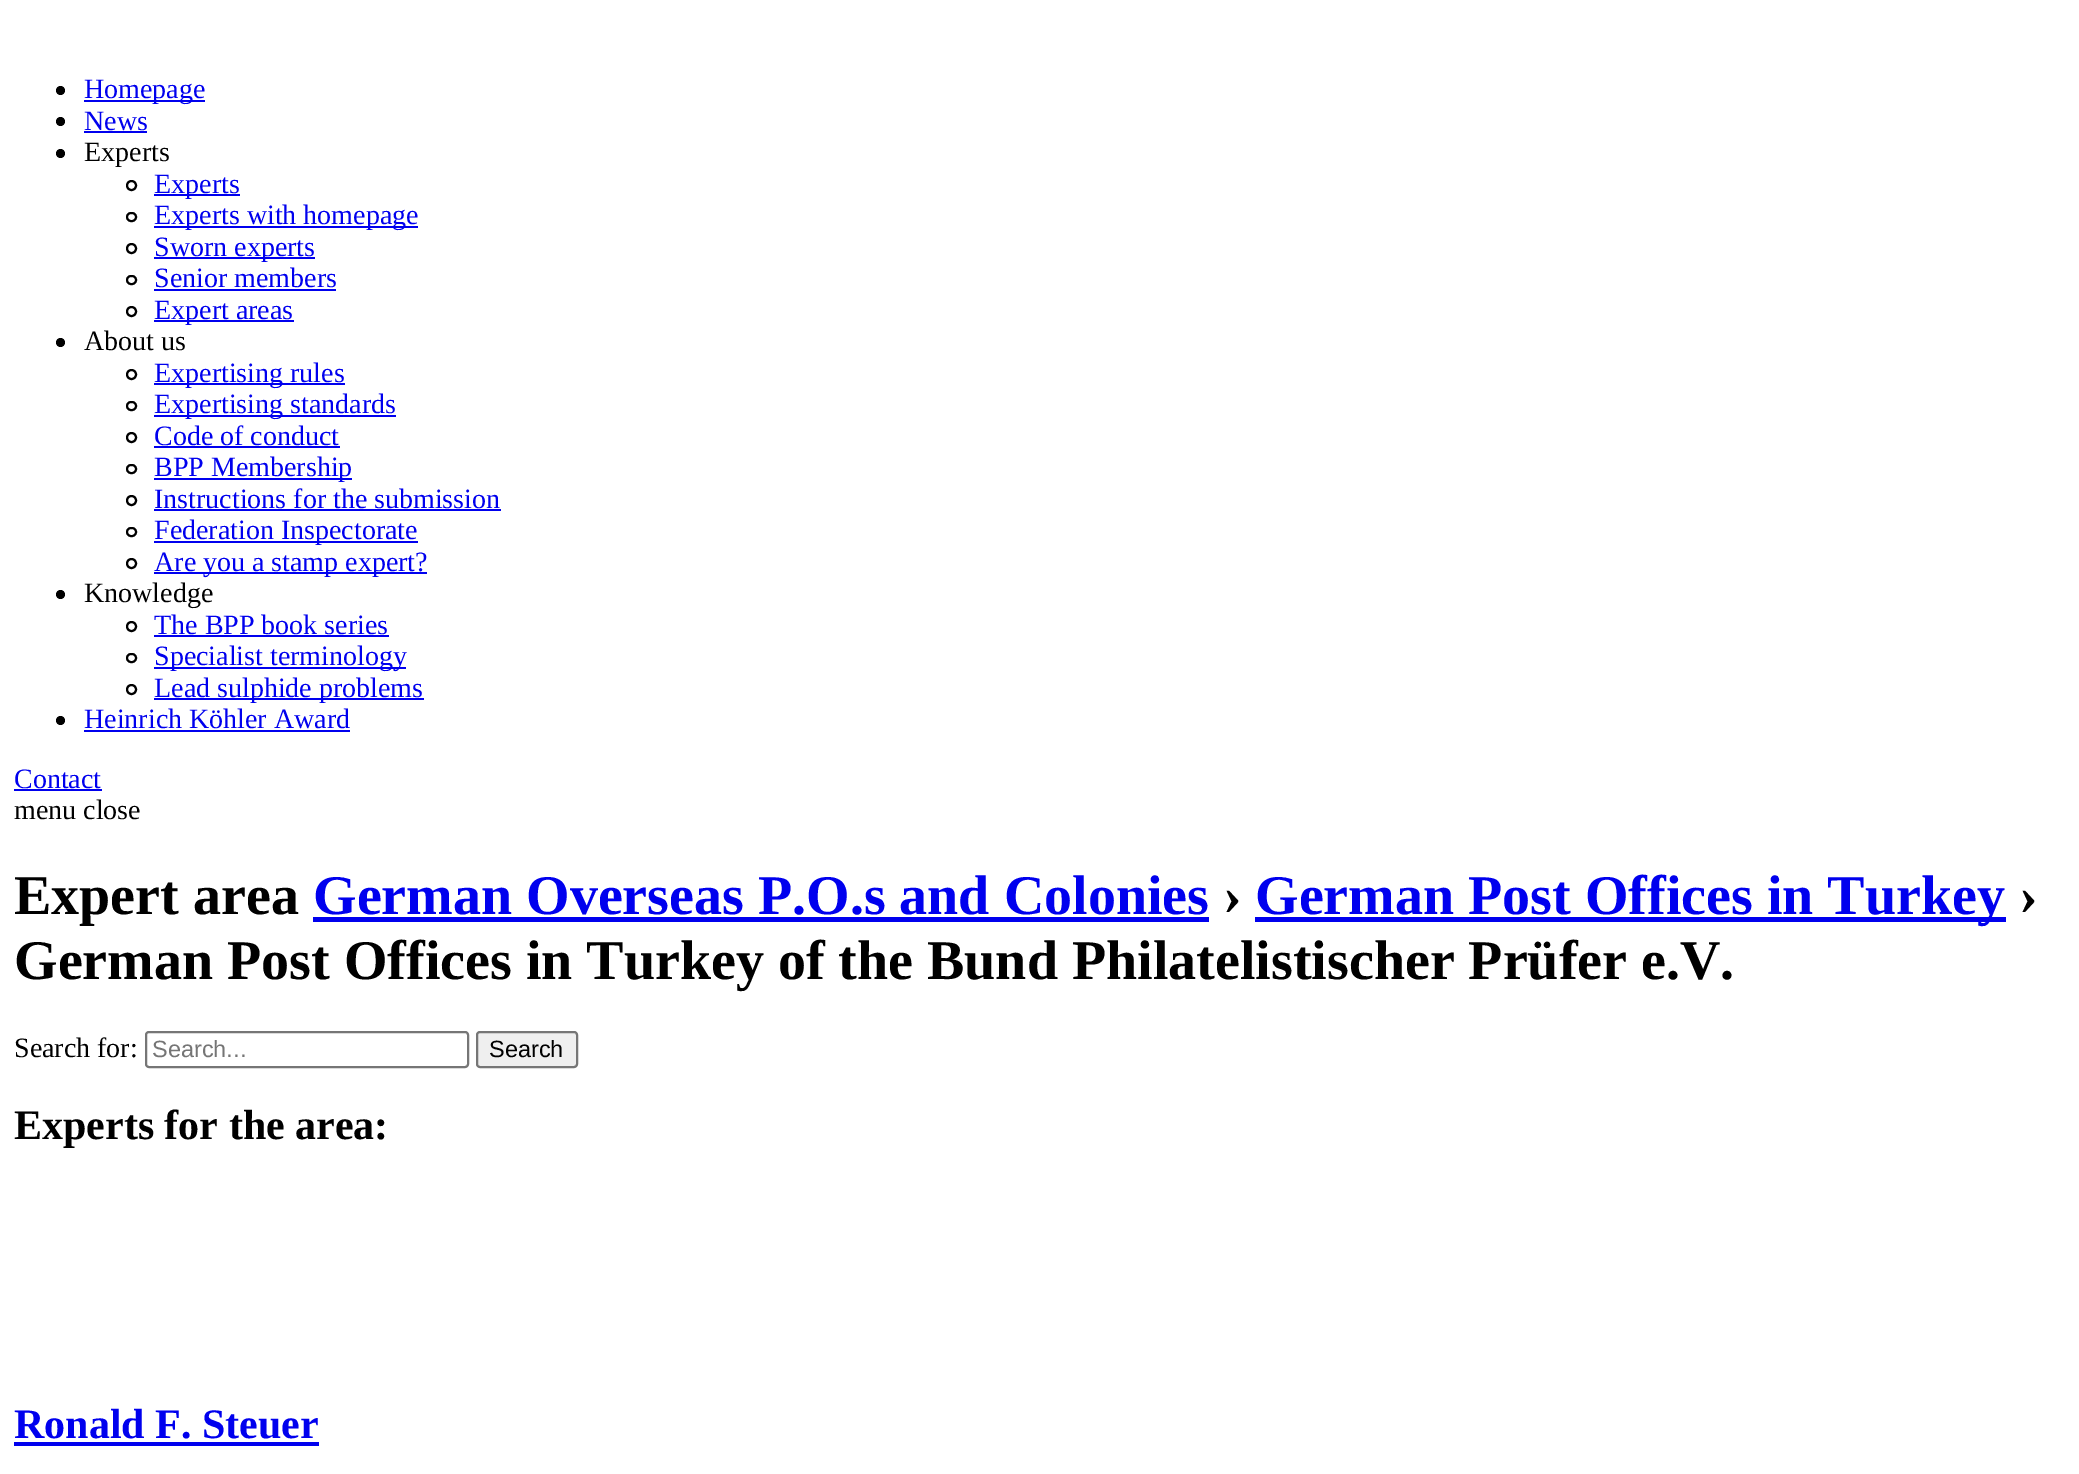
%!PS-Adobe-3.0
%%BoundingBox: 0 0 2079 1474
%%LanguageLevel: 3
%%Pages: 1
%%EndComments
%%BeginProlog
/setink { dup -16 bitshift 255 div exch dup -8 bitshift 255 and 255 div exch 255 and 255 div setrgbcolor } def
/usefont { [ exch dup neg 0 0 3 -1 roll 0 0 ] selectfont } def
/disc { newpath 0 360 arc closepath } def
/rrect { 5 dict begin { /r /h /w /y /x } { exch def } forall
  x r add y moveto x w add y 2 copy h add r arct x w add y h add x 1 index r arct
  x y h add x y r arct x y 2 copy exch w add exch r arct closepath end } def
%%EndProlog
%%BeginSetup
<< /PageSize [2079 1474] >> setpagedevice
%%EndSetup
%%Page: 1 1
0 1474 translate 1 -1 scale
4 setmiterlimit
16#FFFFFF setink
0 0 2079 1474 rectfill
16#000000 setink
60.5 90.5 4.5 disc fill
16#0000EE setink
84 100 121 2 rectfill
/LiberationSerif-Regular 28 usefont
84 98 moveto (Homepage) show
16#000000 setink
60.5 121.5 4.5 disc fill
16#0000EE setink
84 130 moveto (News) show
84 131 63 2 rectfill
16#000000 setink
60.5 153.5 4.5 disc fill
84 161 moveto (Experts) show
2 setlinewidth
131.5 185.5 4.5 disc stroke
16#0000EE setink
154 194 86 2 rectfill
154 193 moveto (Experts) show
16#000000 setink
127 213 9 8 4 rrect stroke
16#0000EE setink
154 226 264 2 rectfill
154 224 moveto (Experts with homepage) show
16#000000 setink
131.5 248.5 4.5 disc stroke
16#0000EE setink
154 257 161 2 rectfill
154 256 moveto (Sworn experts) show
16#000000 setink
127 276 9 8 4 rrect stroke
16#0000EE setink
154 287 moveto (Senior members) show
154 289 182 2 rectfill
16#000000 setink
131.5 311.5 4.5 disc stroke
16#0000EE setink
154 320 140 2 rectfill
154 319 moveto (Expert areas) show
16#000000 setink
60.5 342.5 4.5 disc fill
84 350 moveto (About us) show
131.5 374.5 4.5 disc stroke
16#0000EE setink
154 383 191 2 rectfill
154 382 moveto (Expertising rules) show
16#000000 setink
127 402 9 8 4 rrect stroke
16#0000EE setink
154 415 242 2 rectfill
154 413 moveto (Expertising standards) show
16#000000 setink
131.5 437.5 4.5 disc stroke
16#0000EE setink
154 445 moveto (Code of conduct) show
154 446 186 2 rectfill
16#000000 setink
127 465 9 8 4 rrect stroke
16#0000EE setink
154 478 198 2 rectfill
154 476 moveto (BPP Membership) show
16#000000 setink
131.5 500.5 4.5 disc stroke
16#0000EE setink
154 508 moveto (Instructions for the submission) show
154 509 347 2 rectfill
16#000000 setink
127 528 9 8 4 rrect stroke
16#0000EE setink
154 541 264 2 rectfill
154 539 moveto (Federation Inspectorate) show
16#000000 setink
131.5 563.5 4.5 disc stroke
16#0000EE setink
154 572 273 2 rectfill
154 571 moveto (Are you a stamp expert?) show
16#000000 setink
60.5 594.5 4.5 disc fill
84 602 moveto (Knowledge) show
131.5 626.5 4.5 disc stroke
16#0000EE setink
154 634 moveto (The BPP book series) show
154 635 235 2 rectfill
16#000000 setink
127 654 9 8 4 rrect stroke
16#0000EE setink
154 667 252 2 rectfill
154 665 moveto (Specialist terminology) show
16#000000 setink
131.5 689.5 4.5 disc stroke
16#0000EE setink
154 698 270 2 rectfill
154 697 moveto (Lead sulphide problems) show
16#000000 setink
60.5 720.5 4.5 disc fill
16#0000EE setink
84 728 moveto (Heinrich Köhler Award) show
84 730 266 2 rectfill
14 788 moveto (Contact) show
14 789 88 2 rectfill
16#000000 setink
14 819 moveto (menu close) show
/LiberationSerif-Bold 56 usefont
14 914 moveto (Expert area) show
16#0000EE setink
313 914 moveto (German Overseas P.O.s and Colonies) show
313 917 896 5 rectfill
16#000000 setink
1223 914 moveto (›) show
16#0000EE setink
1255 917 751 5 rectfill
1255 914 moveto (German Post Offices in Turkey) show
16#000000 setink
2019 914 moveto (›) show
14 979 moveto (German Post Offices in Turkey of the Bund Philatelistischer Prüfer e.V.) show
/LiberationSerif-Regular 28 usefont
14 1057 moveto (Search for:) show
16#767676 setink
146 1032 322 35 3 rrect stroke
/LiberationSans-Regular 23.5 usefont
16#757575 setink
152 1057 moveto (Search...) show
16#EFEFEF setink
477 1032 100 35 3 rrect gsave fill grestore
16#767676 setink
stroke
16#000000 setink
489 1057 moveto (Search) show
/LiberationSerif-Bold 42 usefont
14 1139 moveto (Experts for the area:) show
16#0000EE setink
14 1438 moveto (Ronald F. Steuer) show
14 1442 305 4 rectfill
showpage
%%EOF
